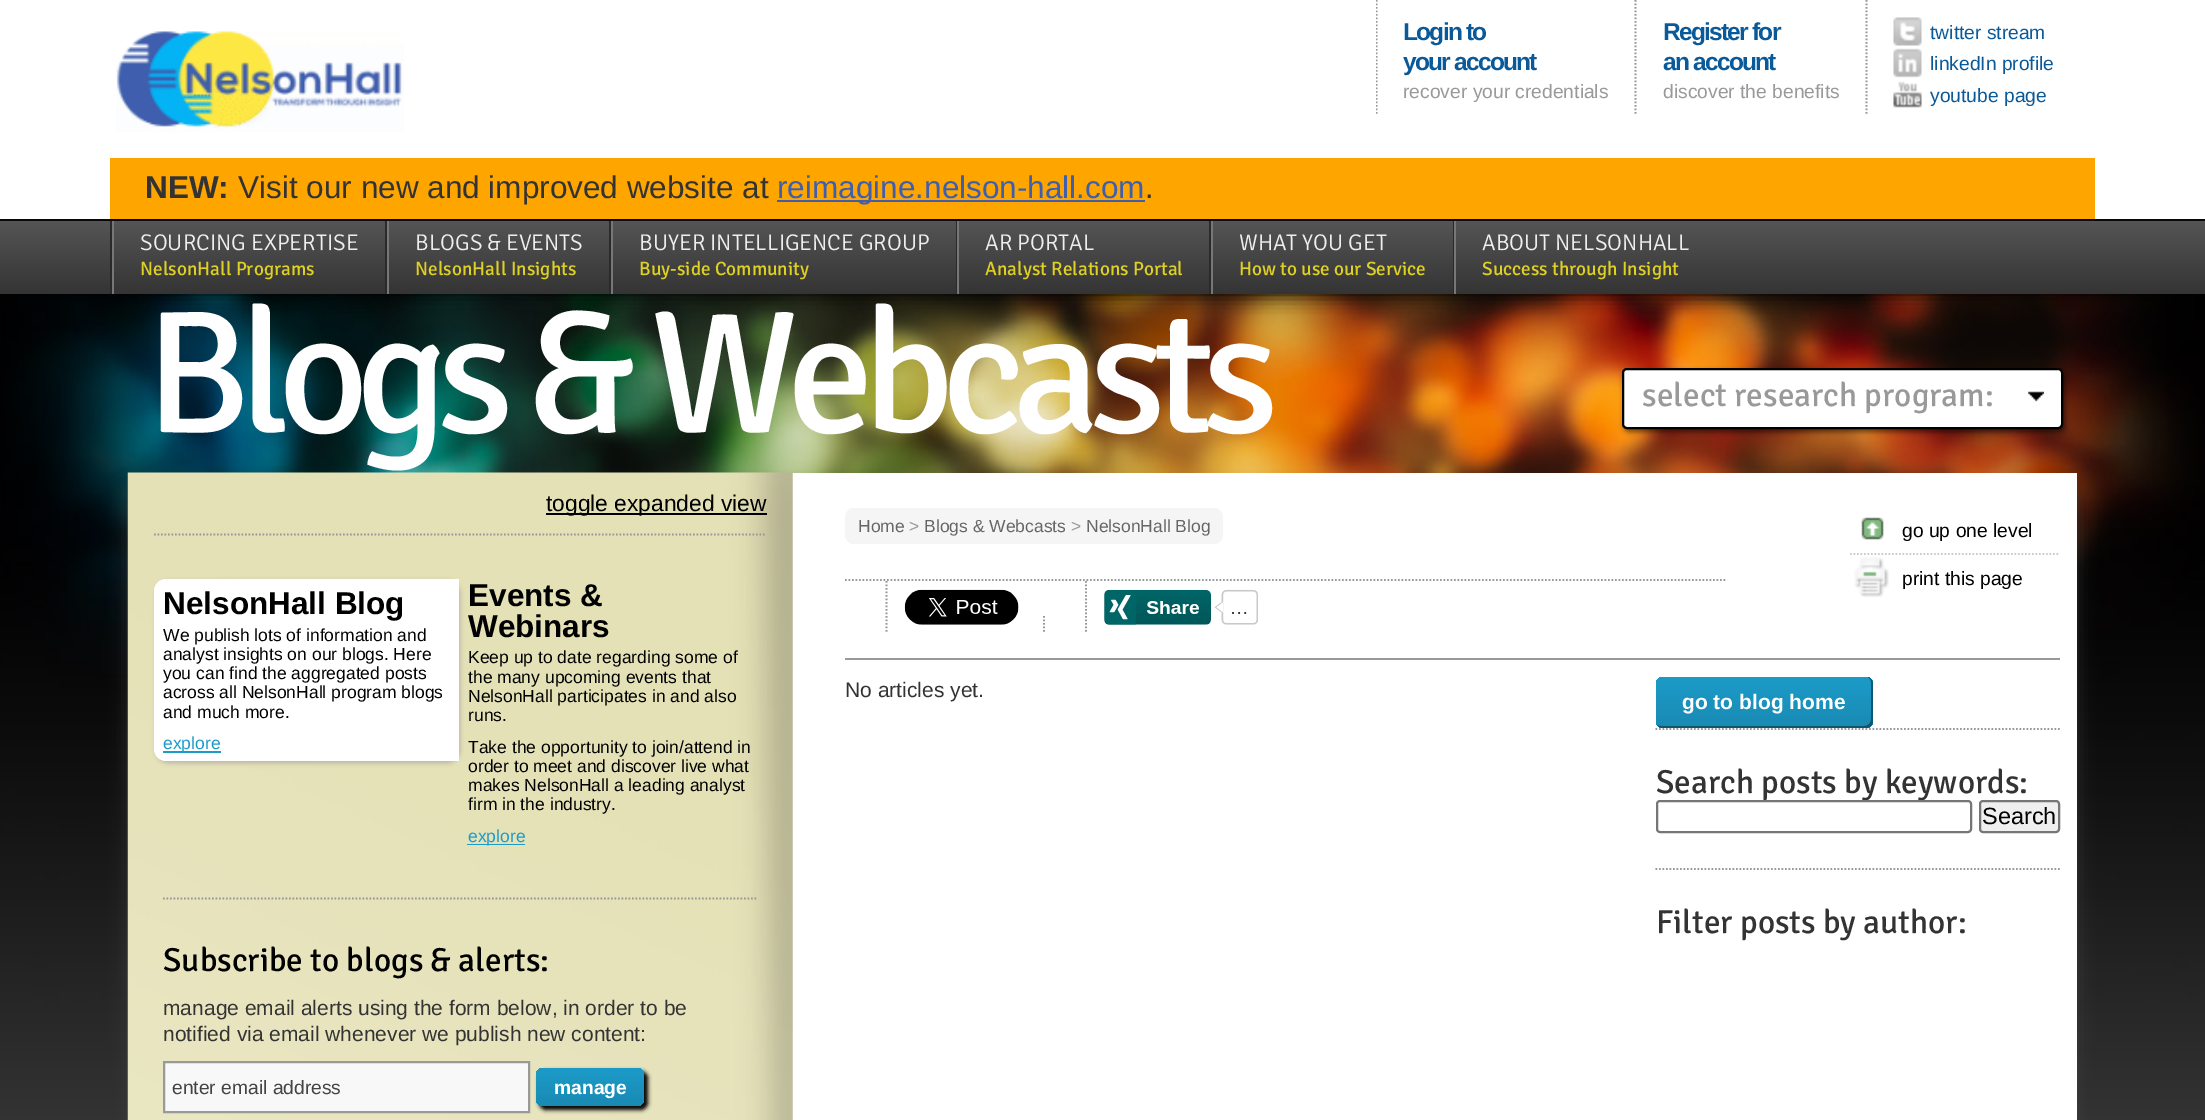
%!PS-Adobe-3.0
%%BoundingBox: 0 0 2205 1120
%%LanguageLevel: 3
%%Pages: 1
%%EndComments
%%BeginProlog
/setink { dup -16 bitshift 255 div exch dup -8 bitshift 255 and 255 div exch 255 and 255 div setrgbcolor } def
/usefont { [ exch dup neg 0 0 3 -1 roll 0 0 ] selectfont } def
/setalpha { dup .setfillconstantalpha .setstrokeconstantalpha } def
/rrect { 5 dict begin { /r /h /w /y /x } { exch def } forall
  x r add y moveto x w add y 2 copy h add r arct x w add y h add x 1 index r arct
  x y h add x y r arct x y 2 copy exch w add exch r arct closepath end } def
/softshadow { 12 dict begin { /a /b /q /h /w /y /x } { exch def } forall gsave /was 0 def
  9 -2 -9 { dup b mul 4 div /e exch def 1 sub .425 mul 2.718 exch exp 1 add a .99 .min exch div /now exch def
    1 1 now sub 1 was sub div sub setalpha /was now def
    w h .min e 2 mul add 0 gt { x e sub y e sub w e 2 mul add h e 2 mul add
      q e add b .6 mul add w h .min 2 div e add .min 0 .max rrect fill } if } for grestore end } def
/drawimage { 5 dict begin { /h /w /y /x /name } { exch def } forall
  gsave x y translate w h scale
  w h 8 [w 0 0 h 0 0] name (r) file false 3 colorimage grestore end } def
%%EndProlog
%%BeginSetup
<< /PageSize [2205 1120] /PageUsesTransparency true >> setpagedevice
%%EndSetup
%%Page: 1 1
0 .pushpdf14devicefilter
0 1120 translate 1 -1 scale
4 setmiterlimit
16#FFFFFF setink
0 0 2205 1120 rectfill
(img1.raw) 0 294 2205 826 drawimage
16#000000 setink
0 0 2205 294 0 9 1 softshadow
16#FFFFFF setink
0 0 2205 219 rectfill
(img2.raw) 116 31 288 101 drawimage
gsave
1376 0 719 114 rectclip
16#999999 setink
1.8 setlinewidth
[1.75 1.75] 0 setdash
1376.5 0 moveto 1376.5 114 lineto stroke
grestore
/LiberationSans-Bold 24.5 usefont
16#0A5A99 setink
1403 40 moveto -1.75 0 (Login to) ashow
1403 70 moveto -1.75 0 (your account) ashow
/LiberationSans-Regular 19.25 usefont
16#999999 setink
1403 98 moveto (recover your credentials) show
1.8 setlinewidth
[1.75 1.75] 0 setdash
1635.5 0 moveto 1635.5 114 lineto stroke
/LiberationSans-Bold 24.5 usefont
16#0A5A99 setink
1663 40 moveto -1.75 0 (Register for) ashow
1663 70 moveto -1.75 0 (an account) ashow
/LiberationSans-Regular 19.25 usefont
16#999999 setink
1663 98 moveto (discover the benefits) show
1866.5 0 moveto 1866.5 114 lineto stroke
(img3.raw) 1893 17 29 29 drawimage
16#0A5A99 setink
1930 39 moveto (twitter stream) show
(img4.raw) 1893 48 29 30 drawimage
1930 70 moveto (linkedIn profile) show
(img5.raw) 1893 81 29 27 drawimage
1930 102 moveto (youtube page) show
16#FFA500 setink
110 158 1985 61 rectfill
/LiberationSans-Bold 31.5 usefont
16#333333 setink
145 198 moveto (NEW:) show
/LiberationSans-Regular 31.5 usefont
238 198 moveto (Visit our new and improved website at) show
16#3F5EAD setink
777 200 368 2 rectfill
777 198 moveto (reimagine.nelson-hall.com) show
16#333333 setink
1145 198 moveto (.) show
gsave 0 221 moveto 2205 221 lineto 2205 294 lineto 0 294 lineto closepath clip newpath
<< /ShadingType 2 /ColorSpace /DeviceRGB /Coords [0 221 0 294] /Extend [true true] /Function << /FunctionType 2 /Domain [0 1] /C0 [0.333 0.333 0.333] /C1 [0.204 0.204 0.204] /N 1 >> >> shfill grestore
[
    [0 219 2205 2 16#090909]
    [110 221 2 73 16#2A2A2A]
    [385 221 2 73 16#2A2A2A]
    [112 221 2 73 16#777777]
] { aload pop setink rectfill } forall
/Signika-Light 22.75 usefont
16#EEEEEE setink
140 250 moveto (SOURCING EXPERTISE) show
/Signika-Regular 19.25 usefont
16#DFD123 setink
140 275 moveto (NelsonHall Programs) show
16#2A2A2A setink
609 221 2 73 rectfill
16#777777 setink
387 221 2 73 rectfill
/Signika-Light 22.75 usefont
16#EEEEEE setink
415 250 moveto (BLOGS & EVENTS) show
/Signika-Regular 19.25 usefont
16#DFD123 setink
415 275 moveto (NelsonHall Insights) show
16#2A2A2A setink
956 221 1 73 rectfill
16#777777 setink
611 221 2 73 rectfill
/Signika-Light 22.75 usefont
16#EEEEEE setink
639 250 moveto (BUYER INTELLIGENCE GROUP) show
/Signika-Regular 19.25 usefont
16#DFD123 setink
639 275 moveto (Buy-side Community) show
16#2A2A2A setink
1209 221 2 73 rectfill
16#777777 setink
957 221 2 73 rectfill
/Signika-Light 22.75 usefont
16#EEEEEE setink
985 250 moveto (AR PORTAL) show
/Signika-Regular 19.25 usefont
16#DFD123 setink
985 275 moveto (Analyst Relations Portal) show
16#2A2A2A setink
1453 221 1 73 rectfill
16#777777 setink
1211 221 2 73 rectfill
/Signika-Light 22.75 usefont
16#EEEEEE setink
1239 250 moveto (WHAT YOU GET) show
/Signika-Regular 19.25 usefont
16#DFD123 setink
1239 275 moveto (How to use our Service) show
16#777777 setink
1454 221 2 73 rectfill
/Signika-Light 22.75 usefont
16#EEEEEE setink
1482 250 moveto (ABOUT NELSONHALL) show
/Signika-Regular 19.25 usefont
16#DFD123 setink
1482 275 moveto (Success through Insight) show
16#444444 setink
128 490 1949 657 0 9 0.6 softshadow
/Signika-Regular 175 usefont
16#FFFFFF setink
145 432 moveto -12.25 0 (Blogs & Webcasts) ashow
16#000000 setink
1624 371 441 61 5 2.5 0.5 softshadow
16#FFFFFF setink
1623 369 439 59 4 rrect gsave fill grestore
16#000000 setink
2 setlinewidth
[] 0 setdash
stroke
(img6.raw) 2028 391 16 11 drawimage
/Signika-Regular 33.25 usefont
16#999999 setink
1642 406 moveto (select research program:) show
16#FFFFFF setink
792 473 1285 647 rectfill
(img7.raw) 127 472 666 648 drawimage
16#999999 setink
1.8 setlinewidth
[1.75 1.75] 0 setdash
154 534.5 moveto 766.5 534.5 lineto stroke
16#000000 setink
546 513 221 2 rectfill
/LiberationSans-Regular 22.75 usefont
546 511 moveto (toggle expanded view) show
16#B7B4A3 setink
156 581 304 182 12 2.5 1 softshadow
16#FFFFFF setink
166 579 moveto 459 579 lineto 459 761 lineto 166 761 lineto 159.5 761 154 755.5 154 749 curveto 154 591 lineto 154 584.5 159.5 579 166 579 curveto closepath fill
/LiberationSans-Bold 31.5 usefont
16#000000 setink
163 614 moveto (NelsonHall Blog) show
/LiberationSans-Regular 17.5 usefont
[
    [(We publish lots of information and) 163 641]
    [(analyst insights on our blogs. Here) 163 660]
    [(you can find the aggregated posts) 163 679]
    [(across all NelsonHall program blogs) 163 698]
    [(and much more.) 163 718]
] { aload pop moveto show } forall
16#1C9BC8 setink
163 751 58 2 rectfill
163 749 moveto (explore) show
/LiberationSans-Bold 31.5 usefont
16#000000 setink
468 606 moveto (Events &) show
468 637 moveto (Webinars) show
/LiberationSans-Regular 17.5 usefont
[
    [(Keep up to date regarding some of) 468 663]
    [(the many upcoming events that) 468 683]
    [(NelsonHall participates in and also) 468 702]
    [(runs.) 468 721]
    [(Take the opportunity to join/attend in) 468 753]
    [(order to meet and discover live what) 468 772]
    [(makes NelsonHall a leading analyst) 468 791]
    [(firm in the industry.) 468 810]
] { aload pop moveto show } forall
16#1C9BC8 setink
467 844 58 1 rectfill
468 842 moveto (explore) show
16#999999 setink
163 898.5 moveto 758 898.5 lineto stroke
/Signika-Regular 33.25 usefont
16#000000 setink
163 971 moveto (Subscribe to blogs & alerts:) show
/LiberationSans-Regular 21 usefont
16#333333 setink
163 1015 moveto (manage email alerts using the form below, in order to be) show
163 1041 moveto (notified via email whenever we publish new content:) show
16#F8F8F8 setink
164 1062 moveto 529 1062 lineto 529 1112 lineto 164 1112 lineto closepath gsave fill grestore
16#999999 setink
2 setlinewidth
[] 0 setdash
stroke
/LiberationSans-Regular 19.25 usefont
16#444444 setink
172 1094 moveto (enter email address) show
16#000000 setink
539 1071 109 39 7 2 1 softshadow
gsave 536 1068 108 38 7 rrect clip newpath
<< /ShadingType 2 /ColorSpace /DeviceRGB /Coords [536 1068 536 1106] /Extend [true true] /Function << /FunctionType 2 /Domain [0 1] /C0 [0.11 0.608 0.784] /C1 [0.098 0.541 0.702] /N 1 >> >> shfill grestore
/LiberationSans-Bold 19.25 usefont
16#FFFFFF setink
554 1094 moveto (manage) show
16#999999 setink
845 658 1215 2 rectfill
16#F5F5F5 setink
845 508 378 36 9 rrect fill
/LiberationSans-Regular 17.5 usefont
16#666666 setink
858 532 moveto (Home) show
16#999999 setink
909 532 moveto (>) show
16#666666 setink
924 532 moveto (Blogs & Webcasts) show
16#999999 setink
1071 532 moveto (>) show
16#666666 setink
1086 532 moveto (NelsonHall Blog) show
16#999999 setink
1.8 setlinewidth
[1.75 1.75] 0 setdash
845 580 moveto 1727 580 lineto stroke
886.5 581 moveto 886.5 633.5 lineto stroke
(img8.raw) 904 589 115 36 drawimage
1044 616 moveto 1044 633.5 lineto 1086 581 moveto 1086 633.5 lineto stroke
(img9.raw) 1104 589 154 36 drawimage
(img10.raw) 1861 517 23 23 drawimage
/LiberationSans-Regular 19.25 usefont
16#000000 setink
1902 537 moveto (go up one level) show
16#CCCCCC setink
1850 554 moveto 2060 554 lineto stroke
(img11.raw) 1854 557 35 40 drawimage
16#000000 setink
1902 585 moveto (print this page) show
/LiberationSans-Regular 21 usefont
16#333333 setink
845 697 moveto (No articles yet.) show
gsave 1656 677 217 51 7 rrect clip newpath
<< /ShadingType 2 /ColorSpace /DeviceRGB /Coords [1656 677 1656 728] /Extend [true true] /Function << /FunctionType 2 /Domain [0 1] /C0 [0.11 0.608 0.784] /C1 [0.098 0.541 0.702] /N 1 >> >> shfill grestore
16#0E566E setink
1657 725 moveto 1658 727 1661 728 1663 728 curveto 1866 728 lineto 1870 728 1873 725 1873 721 curveto 1873 684 lineto 1873 681 1871 678 1868 677 curveto 1870 679 1871 680 1871 682 curveto 1871 719 lineto 1871 723 1868 726 1864 726 curveto 1661 726 lineto 1660 726 1658 726 1657 725 curveto closepath fill
/LiberationSans-Bold 21 usefont
16#FFFFFF setink
1682 709 moveto (go to blog home) show
16#999999 setink
1655.5 729 moveto 2060 729 lineto stroke
/Signika-Regular 33.25 usefont
16#333333 setink
1656 793 moveto (Search posts by keywords:) show
16#FFFFFF setink
1657 801 314 31 3 rrect gsave fill grestore
16#767676 setink
2 setlinewidth
[] 0 setdash
stroke
16#EFEFEF setink
1980 801 79 31 3 rrect gsave fill grestore
16#767676 setink
stroke
/LiberationSans-Regular 23.5 usefont
16#000000 setink
1982 824 moveto (Search) show
16#999999 setink
1.8 setlinewidth
[1.75 1.75] 0 setdash
1655.5 869 moveto 2060 869 lineto stroke
/Signika-Regular 33.25 usefont
16#333333 setink
1656 933 moveto (Filter posts by author:) show
.poppdf14devicefilter showpage
%%EOF
